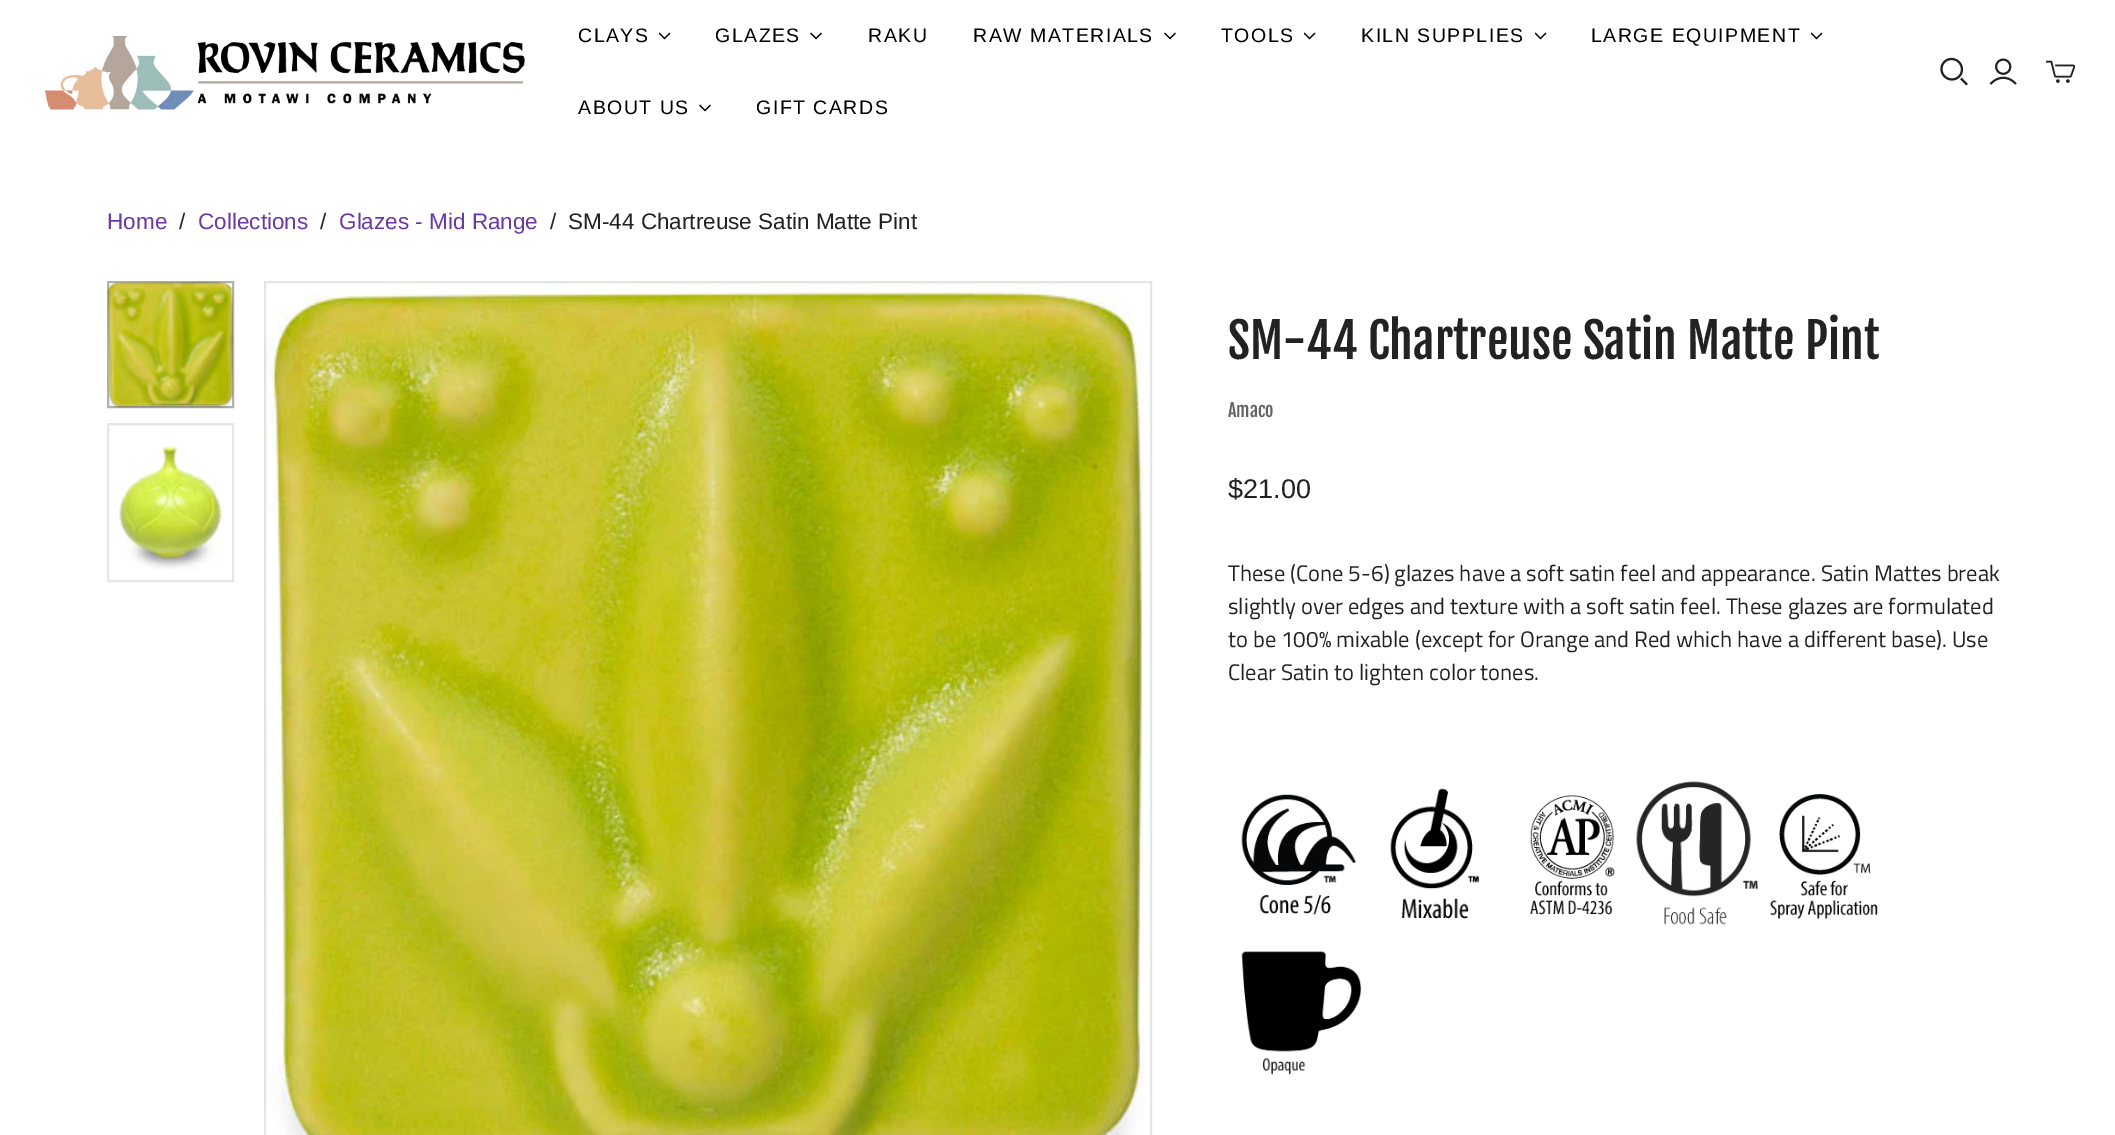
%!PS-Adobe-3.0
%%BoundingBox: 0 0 2115 1135
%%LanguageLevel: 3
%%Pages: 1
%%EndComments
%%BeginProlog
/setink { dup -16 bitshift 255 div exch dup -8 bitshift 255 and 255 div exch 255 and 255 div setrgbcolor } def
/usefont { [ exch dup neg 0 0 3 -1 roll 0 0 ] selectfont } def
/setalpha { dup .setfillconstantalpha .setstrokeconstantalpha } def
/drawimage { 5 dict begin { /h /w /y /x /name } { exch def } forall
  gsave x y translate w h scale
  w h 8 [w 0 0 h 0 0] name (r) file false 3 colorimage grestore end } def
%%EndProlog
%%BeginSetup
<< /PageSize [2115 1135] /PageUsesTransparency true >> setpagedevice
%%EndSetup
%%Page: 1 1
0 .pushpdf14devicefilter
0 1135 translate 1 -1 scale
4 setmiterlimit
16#FFFFFF setink
0 0 2115 1135 rectfill
(img1.raw) 45 36 480 74 drawimage
/LiberationSans-Regular 19.5 usefont
16#000000 setink
578 42 moveto 1.5 0 (CLAYS) ashow
(img2.raw) 659 32 12 8 drawimage
715 42 moveto 1.5 0 (GLAZES) ashow
(img3.raw) 810 32 12 8 drawimage
868 42 moveto 1.5 0 (RAKU) ashow
973 42 moveto 1.5 0 (RAW MATERIALS) ashow
(img3.raw) 1164 32 12 8 drawimage
1221 42 moveto 1.5 0 (TOOLS) ashow
(img2.raw) 1304 32 12 8 drawimage
1361 42 moveto 1.5 0 (KILN SUPPLIES) ashow
(img2.raw) 1535 32 12 8 drawimage
1591 42 moveto 1.5 0 (LARGE EQUIPMENT) ashow
(img2.raw) 1811 32 12 8 drawimage
578 114 moveto 1.5 0 (ABOUT US) ashow
(img3.raw) 699 104 12 8 drawimage
756 114 moveto 1.5 0 (GIFT CARDS) ashow
(img4.raw) 1940 57 28 29 drawimage
(img5.raw) 1989 58 28 27 drawimage
(img6.raw) 2046 60 30 23 drawimage
/LiberationSans-Regular 22.5 usefont
16#6C39A4 setink
107 229 moveto (Home) show
16#222222 setink
179 229 moveto (/) show
16#6C39A4 setink
198 229 moveto (Collections) show
16#222222 setink
320 229 moveto (/) show
16#6C39A4 setink
339 229 moveto (Glazes - Mid Range) show
16#222222 setink
550 229 moveto (/) show
568 229 moveto (SM-44 Chartreuse Satin Matte Pint) show
(img7.raw) 106 280 128 128 drawimage
0.3 setalpha
16#000000 setink
2 setlinewidth
108 282 125 125 rectstroke
1 setalpha
(img8.raw) 117 445 106 125 drawimage
16#E6E6E6 setink
108 424 125 157 rectstroke
(img9.raw) 264 280 881 855 drawimage
0.1 setalpha
16#000000 setink
265 282 886 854 rectstroke
/FjallaOne-Regular 48 usefont
1 setalpha
16#222222 setink
1228 359 moveto (SM-44 Chartreuse Satin Matte Pint) show
/FjallaOne-Regular 18 usefont
16#646464 setink
1228 417 moveto (Amaco) show
/LiberationSans-Regular 27 usefont
16#222222 setink
1228 498 moveto ($21.00) show
/TitilliumWeb-Regular 22.5 usefont
[
    [(These \(Cone 5-6\) glazes have a soft satin feel and appearance. Satin Mattes break) 1228 581]
    [(slightly over edges and texture with a soft satin feel. These glazes are formulated) 1228 614]
    [(to be 100% mixable \(except for Orange and Red which have a different base\). Use) 1228 647]
    [(Clear Satin to lighten color tones.) 1228 680]
] { aload pop moveto show } forall
(img10.raw) 1241 794 116 121 drawimage
(img11.raw) 1390 788 89 131 drawimage
(img12.raw) 1530 795 85 120 drawimage
(img13.raw) 1636 781 122 144 drawimage
(img14.raw) 1770 794 108 125 drawimage
(img15.raw) 1241 951 121 124 drawimage
.poppdf14devicefilter showpage
%%EOF
